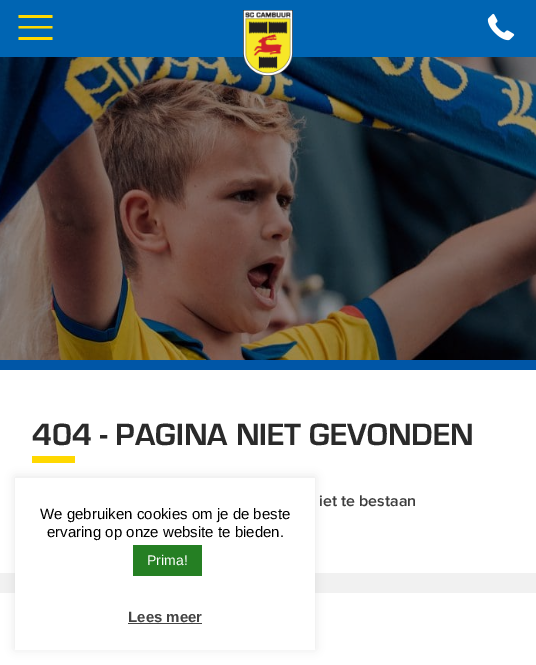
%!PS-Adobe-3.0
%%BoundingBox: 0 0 536 665
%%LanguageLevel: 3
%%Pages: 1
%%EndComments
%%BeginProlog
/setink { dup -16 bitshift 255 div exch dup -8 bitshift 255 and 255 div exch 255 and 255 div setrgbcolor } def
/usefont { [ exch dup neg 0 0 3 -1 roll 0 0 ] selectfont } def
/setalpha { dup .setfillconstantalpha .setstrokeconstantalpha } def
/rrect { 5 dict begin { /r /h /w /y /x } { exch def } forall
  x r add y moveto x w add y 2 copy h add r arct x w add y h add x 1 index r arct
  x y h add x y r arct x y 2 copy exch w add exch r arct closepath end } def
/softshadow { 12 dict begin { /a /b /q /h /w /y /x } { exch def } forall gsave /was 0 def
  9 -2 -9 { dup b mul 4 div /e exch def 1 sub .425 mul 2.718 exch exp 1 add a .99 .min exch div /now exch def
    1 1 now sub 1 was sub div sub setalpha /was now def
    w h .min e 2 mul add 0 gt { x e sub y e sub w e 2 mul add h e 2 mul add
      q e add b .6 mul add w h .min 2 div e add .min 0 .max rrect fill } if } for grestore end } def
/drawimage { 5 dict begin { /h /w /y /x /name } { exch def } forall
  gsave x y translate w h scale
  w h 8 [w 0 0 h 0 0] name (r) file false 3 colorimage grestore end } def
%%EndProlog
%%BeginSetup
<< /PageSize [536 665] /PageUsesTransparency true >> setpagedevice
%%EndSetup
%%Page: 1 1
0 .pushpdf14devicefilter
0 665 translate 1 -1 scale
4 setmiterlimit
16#F1F1F1 setink
0 0 536 665 rectfill
16#0065B3 setink
0 0 536 57 rectfill
16#FFD800 setink
18.5 15 moveto 52.5 15 lineto 52.5 18 lineto 18.5 18 lineto closepath 18.5 26 moveto 52.5 26 lineto 52.5 28.5 lineto 18.5 28.5 lineto closepath 18.5 37 moveto 52.5 37 lineto 52.5 40 lineto 18.5 40 lineto closepath fill
(img3.raw) 0 57 536 303 drawimage
(img1.raw) 243 10 50 66 drawimage
(img2.raw) 487 13 28 28 drawimage
16#FFFFFF setink
0 370 536 203 rectfill
16#0056A7 setink
0 360 536 10 rectfill
/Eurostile-Bold 32 usefont
16#2A2A2A setink
32 445 moveto (404 - PAGINA NIET GEVONDEN) show
16#FFD800 setink
32 456 43 7 rectfill
/ProximaNova-SemiBold 16 usefont
16#3D3D3D setink
319 506 moveto (iet te bestaan) show
16#FFFFFF setink
0 593 536 72 rectfill
16#ACABAB setink
15 477 300 172 0 5 0.3 softshadow
16#FFFFFF setink
15 478 300 172 rectfill
/LiberationSans-Regular 15 usefont
16#000000 setink
40 519 moveto (We gebruiken cookies om je de beste) show
47 537 moveto (ervaring op onze website te bieden.) show
16#257F23 setink
133 545 69 31 rectfill
/LiberationSans-Regular 14 usefont
16#FFFFFF setink
147 565 moveto (Prima!) show
/LiberationSans-Bold 15 usefont
16#444444 setink
128 622 moveto (Lees meer) show
128 623 74 1 rectfill
.poppdf14devicefilter showpage
%%EOF
